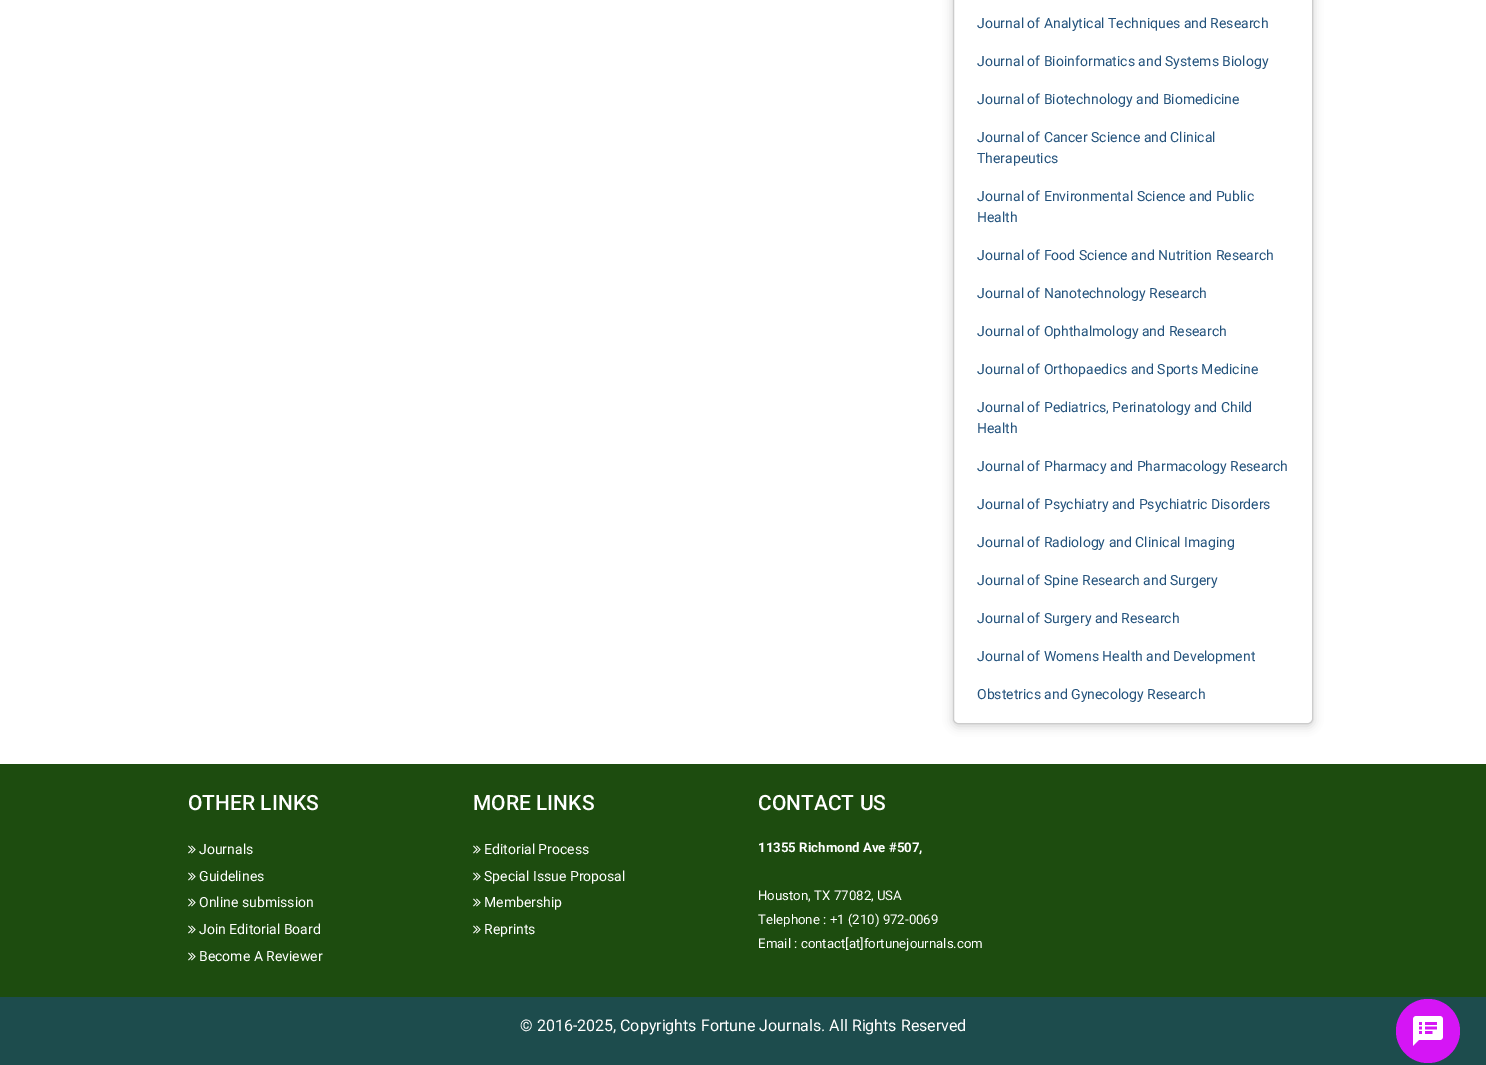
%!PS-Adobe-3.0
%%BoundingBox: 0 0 1486 1065
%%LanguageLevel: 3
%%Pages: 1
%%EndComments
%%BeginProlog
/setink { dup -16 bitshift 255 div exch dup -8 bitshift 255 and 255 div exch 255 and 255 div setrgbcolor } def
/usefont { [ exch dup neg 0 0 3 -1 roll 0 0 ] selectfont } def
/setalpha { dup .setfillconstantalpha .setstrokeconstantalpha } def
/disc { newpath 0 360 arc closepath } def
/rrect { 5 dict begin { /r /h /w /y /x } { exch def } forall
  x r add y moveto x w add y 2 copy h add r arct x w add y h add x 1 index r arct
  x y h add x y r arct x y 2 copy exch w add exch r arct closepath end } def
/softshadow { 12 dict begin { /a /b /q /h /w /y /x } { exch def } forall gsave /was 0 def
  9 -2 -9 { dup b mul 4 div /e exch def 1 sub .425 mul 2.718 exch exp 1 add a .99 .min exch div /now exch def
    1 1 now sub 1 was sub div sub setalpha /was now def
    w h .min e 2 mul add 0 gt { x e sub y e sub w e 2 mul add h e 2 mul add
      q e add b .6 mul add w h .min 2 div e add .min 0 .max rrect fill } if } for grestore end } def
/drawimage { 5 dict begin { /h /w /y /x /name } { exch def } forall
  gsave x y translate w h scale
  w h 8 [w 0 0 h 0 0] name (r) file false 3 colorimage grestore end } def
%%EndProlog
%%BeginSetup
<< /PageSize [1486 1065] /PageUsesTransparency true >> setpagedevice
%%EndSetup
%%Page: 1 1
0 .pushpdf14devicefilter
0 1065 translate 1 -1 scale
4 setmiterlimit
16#FFFFFF setink
0 0 1486 1065 rectfill
gsave
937 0 moveto 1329 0 lineto 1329 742 lineto 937 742 lineto closepath 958 -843 moveto 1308 -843 lineto 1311 -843 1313 -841 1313 -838 curveto 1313 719 lineto 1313 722 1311 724 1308 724 curveto 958 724 lineto 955 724 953 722 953 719 curveto 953 -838 lineto 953 -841 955 -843 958 -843 curveto closepath eoclip newpath
16#CCCCCC setink
953 -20 360 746 5 5 1 softshadow
grestore
16#CCCCCC setink
953.5 -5.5 359 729 4.5 rrect stroke
/Roboto-Regular 14 usefont
16#23527C setink
[
    [(Journal of Analytical Techniques and Research) 977 28]
    [(Journal of Bioinformatics and Systems Biology) 977 66]
    [(Journal of Biotechnology and Biomedicine) 977 104]
    [(Journal of Cancer Science and Clinical) 977 142]
    [(Therapeutics) 977 163]
    [(Journal of Environmental Science and Public) 977 201]
    [(Health) 977 222]
    [(Journal of Food Science and Nutrition Research) 977 260]
    [(Journal of Nanotechnology Research) 977 298]
    [(Journal of Ophthalmology and Research) 977 336]
    [(Journal of Orthopaedics and Sports Medicine) 977 374]
    [(Journal of Pediatrics, Perinatology and Child) 977 412]
    [(Health) 977 433]
    [(Journal of Pharmacy and Pharmacology Research) 977 471]
    [(Journal of Psychiatry and Psychiatric Disorders) 977 509]
    [(Journal of Radiology and Clinical Imaging) 977 547]
    [(Journal of Spine Research and Surgery) 977 585]
    [(Journal of Surgery and Research) 977 623]
    [(Journal of Womens Health and Development) 977 661]
    [(Obstetrics and Gynecology Research) 977 699]
] { aload pop moveto show } forall
16#1D4C0F setink
0 764 1486 233 rectfill
/Roboto-Medium 21 usefont
16#FFFFFF setink
188 810 moveto (OTHER LINKS) show
(img1.raw) 188 845 8 9 drawimage
/Roboto-Regular 14 usefont
199 854 moveto (Journals) show
(img1.raw) 188 872 8 9 drawimage
199 881 moveto (Guidelines) show
(img1.raw) 188 898 8 9 drawimage
199 907 moveto (Online submission) show
(img1.raw) 188 925 8 9 drawimage
199 934 moveto (Join Editorial Board) show
(img1.raw) 188 952 8 9 drawimage
199 961 moveto (Become A Reviewer) show
/Roboto-Medium 21 usefont
473 810 moveto (MORE LINKS) show
(img1.raw) 473 845 8 9 drawimage
/Roboto-Regular 14 usefont
484 854 moveto (Editorial Process) show
(img1.raw) 473 872 8 9 drawimage
484 881 moveto (Special Issue Proposal) show
(img1.raw) 473 898 8 9 drawimage
484 907 moveto (Membership) show
(img1.raw) 473 925 8 9 drawimage
484 934 moveto (Reprints) show
/Roboto-Medium 21 usefont
758 810 moveto (CONTACT US) show
/Roboto-Bold 13.25 usefont
758 852 moveto (11355 Richmond Ave #507,) show
/Roboto-Regular 13.25 usefont
[
    [(Houston, TX 77082, USA) 758 900]
    [(Telephone : +1 \(210\) 972-0069) 758 924]
    [(Email : contact[at]fortunejournals.com) 758 948]
] { aload pop moveto show } forall
16#1D4C4D setink
0 997 1486 68 rectfill
/Roboto-Regular 16 usefont
16#FFFFFF setink
520 1031 moveto (© 2016-2025, Copyrights Fortune Journals. All Rights Reserved) show
16#D515F5 setink
1428 1031 32 disc fill
(img2.raw) 1413 1016 30 30 drawimage
.poppdf14devicefilter showpage
%%EOF
